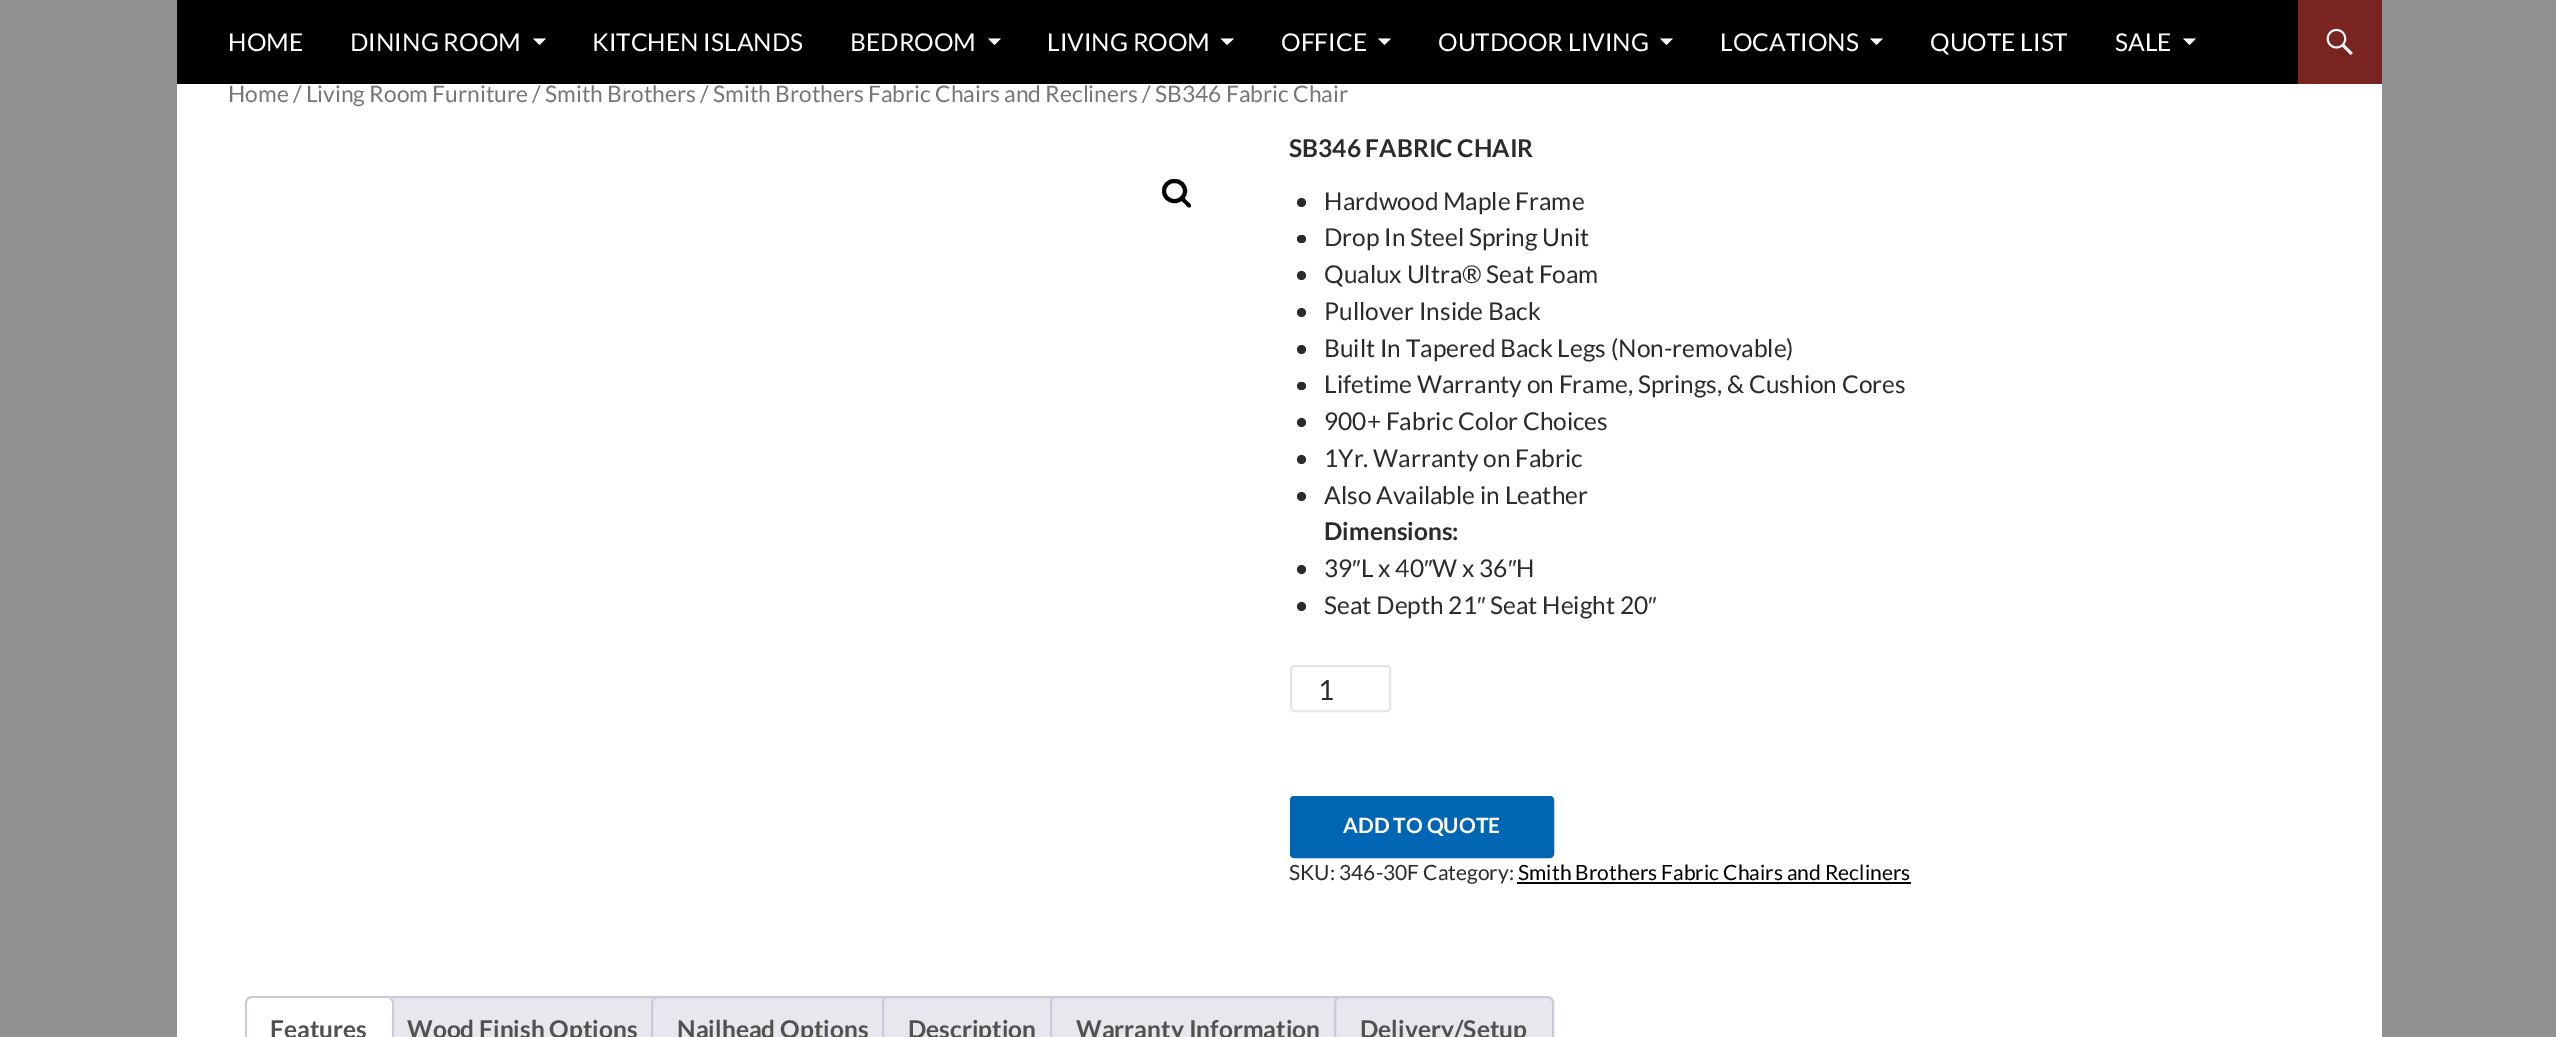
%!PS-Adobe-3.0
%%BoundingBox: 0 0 2556 1037
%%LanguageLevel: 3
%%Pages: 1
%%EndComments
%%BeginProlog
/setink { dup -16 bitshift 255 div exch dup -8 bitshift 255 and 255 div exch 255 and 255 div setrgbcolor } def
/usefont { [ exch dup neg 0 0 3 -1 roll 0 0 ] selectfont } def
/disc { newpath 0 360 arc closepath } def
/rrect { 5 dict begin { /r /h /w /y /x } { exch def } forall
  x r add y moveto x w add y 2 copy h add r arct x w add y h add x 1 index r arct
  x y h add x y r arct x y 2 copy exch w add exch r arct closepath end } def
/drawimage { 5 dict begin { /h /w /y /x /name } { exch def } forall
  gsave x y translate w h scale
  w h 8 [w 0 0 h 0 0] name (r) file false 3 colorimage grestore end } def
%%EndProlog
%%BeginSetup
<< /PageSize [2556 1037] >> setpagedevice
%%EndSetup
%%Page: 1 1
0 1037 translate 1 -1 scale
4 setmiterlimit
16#919191 setink
0 0 2556 1037 rectfill
16#FFFFFF setink
177 84 2205 953 rectfill
16#000000 setink
177 0 2121 84 rectfill
/Lato-Regular 24.5 usefont
16#FFFFFF setink
228 51 moveto (HOME) show
350 51 moveto (DINING ROOM) show
533 38.5 moveto 539.5 45 lineto 546 38.5 lineto closepath fill
592 51 moveto (KITCHEN ISLANDS) show
850 51 moveto (BEDROOM) show
988 38.5 moveto 994.5 45 lineto 1001 38.5 lineto closepath fill
1047 51 moveto (LIVING ROOM) show
1220.5 38.5 moveto 1227 45 lineto 1234 38.5 lineto closepath fill
1281 51 moveto (OFFICE) show
1378 38.5 moveto 1384.5 45 lineto 1391 38.5 lineto closepath fill
1438 51 moveto (OUTDOOR LIVING) show
1660 38.5 moveto 1666.5 45 lineto 1673 38.5 lineto closepath fill
1720 51 moveto (LOCATIONS) show
1870 38.5 moveto 1876.5 45 lineto 1883 38.5 lineto closepath fill
1930 51 moveto (QUOTE LIST) show
2115 51 moveto (SALE) show
2183 38.5 moveto 2189.5 45 lineto 2196 38.5 lineto closepath fill
16#7A2421 setink
2298 0 84 84 rectfill
(img1.raw) 2326 28 27 27 drawimage
/Lato-Regular 22.75 usefont
16#767676 setink
228 102 moveto (Home / Living Room Furniture / Smith Brothers / Smith Brothers Fabric Chairs and Recliners / SB346 Fabric Chair) show
16#000000 setink
4 setlinewidth
1164 181 21 20 10 rrect stroke
1180.5 197 moveto 1182.5 195 1186 200 1187 201 curveto 1188 202 1192.5 205 1190.5 207 curveto 1188.5 209 1185.5 204.5 1184.5 203.5 curveto 1183.5 202.5 1178.5 199 1180.5 197 curveto closepath fill
/Lato-Bold 24.5 usefont
16#2B2B2B setink
1289 157 moveto (SB346 FABRIC CHAIR) show
1301.5 202.5 4.5 disc fill
/Lato-Regular 24.5 usefont
1324 210 moveto (Hardwood Maple Frame) show
1297 235 9 8 4 rrect fill
1324 246 moveto (Drop In Steel Spring Unit) show
1301.5 275.5 4.5 disc fill
1324 283 moveto (Qualux Ultra® Seat Foam) show
1301.5 312.5 4.5 disc fill
1324 320 moveto (Pullover Inside Back) show
1301.5 349.5 4.5 disc fill
1324 357 moveto (Built In Tapered Back Legs \(Non-removable\)) show
1297 382 9 8 4 rrect fill
1324 393 moveto (Lifetime Warranty on Frame, Springs, & Cushion Cores) show
1301.5 422.5 4.5 disc fill
1324 430 moveto (900+ Fabric Color Choices) show
1301.5 459.5 4.5 disc fill
1324 467 moveto (1Yr. Warranty on Fabric) show
1301.5 496.5 4.5 disc fill
1324 504 moveto (Also Available in Leather) show
/Lato-Bold 24.5 usefont
1324 540 moveto (Dimensions:) show
/Lato-Regular 24.5 usefont
1324 577 moveto (39) show
/LiberationSans-Regular 24.5 usefont
1352 577 moveto (″) show
/Lato-Regular 24.5 usefont
1361 577 moveto (L x 40) show
/LiberationSans-Regular 24.5 usefont
1424 577 moveto (″) show
/Lato-Regular 24.5 usefont
1432 577 moveto (W x 36) show
/LiberationSans-Regular 24.5 usefont
1508 577 moveto (″) show
/Lato-Regular 24.5 usefont
1516 577 moveto (H) show
1301.5 569.5 4.5 disc fill
1324 614 moveto (Seat Depth 21) show
/LiberationSans-Regular 24.5 usefont
1477 614 moveto (″) show
/Lato-Regular 24.5 usefont
1490 614 moveto (Seat Height 20) show
/LiberationSans-Regular 24.5 usefont
1648 614 moveto (″) show
1301.5 606.5 4.5 disc fill
16#E6E6E6 setink
2 setlinewidth
1291 666 99 45 3 rrect stroke
/Lato-Regular 28 usefont
16#2B2B2B setink
1318 700 moveto (1) show
16#0066B4 setink
1291 797 262 60 3 rrect gsave fill grestore
stroke
/Lato-Bold 21 usefont
16#FFFFFF setink
1343 833 moveto (ADD TO QUOTE) show
/Lato-Regular 21 usefont
16#2B2B2B setink
1289 880 moveto (SKU: 346-30F Category:) show
16#000000 setink
1518 880 moveto (Smith Brothers Fabric Chairs and Recliners) show
1517 882 394 2 rectfill
16#E9E6ED setink
389 997 moveto 656 997 lineto 659.5 997 662 999.5 662 1003 curveto 662 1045 lineto 383 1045 lineto 383 1003 lineto 383 999.5 385.5 997 389 997 curveto closepath gsave fill grestore
16#CFC8D8 setink
stroke
16#FFFFFF setink
252 996 moveto 387 996 lineto 391 996 394 999 394 1003 curveto 394 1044 lineto 245 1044 lineto 245 1003 lineto 245 999 248 996 252 996 curveto closepath fill
16#CFC8D8 setink
252 996 moveto 250 996 248 997 247 998 curveto 249 999 lineto 249 998 251 998 252 998 curveto 387 998 lineto 388 998 390 998 390 999 curveto 392 998 lineto 391 997 389 996 387 996 curveto closepath fill
392 998 moveto 394 1001 lineto 394 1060 lineto 392 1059 lineto 392 1003 lineto 392 1001 391 1000 390 999 curveto closepath fill
245 1003 moveto 245 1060 lineto 247 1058 lineto 247 1003 lineto 247 1001 248 1000 249 999 curveto 247 998 lineto 246 999 245 1001 245 1003 curveto closepath fill
/Lato-Bold 24.5 usefont
16#515151 setink
270 1038 moveto (Features) show
407 1038 moveto (Wood Finish Options) show
16#E9E6ED setink
658 997 moveto 887 997 lineto 890.5 997 893 999.5 893 1003 curveto 893 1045 lineto 652 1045 lineto 652 1003 lineto 652 999.5 654.5 997 658 997 curveto closepath gsave fill grestore
16#CFC8D8 setink
stroke
16#515151 setink
677 1038 moveto (Nailhead Options) show
16#E9E6ED setink
889 997 moveto 1055 997 lineto 1058.5 997 1061 999.5 1061 1003 curveto 1061 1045 lineto 883 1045 lineto 883 1003 lineto 883 999.5 885.5 997 889 997 curveto closepath gsave fill grestore
16#CFC8D8 setink
stroke
16#515151 setink
908 1038 moveto (Description) show
16#E9E6ED setink
1057 997 moveto 1341 997 lineto 1344.5 997 1347 999.5 1347 1003 curveto 1347 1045 lineto 1051 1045 lineto 1051 1003 lineto 1051 999.5 1053.5 997 1057 997 curveto closepath gsave fill grestore
16#CFC8D8 setink
stroke
16#515151 setink
1076 1038 moveto (Warranty Information) show
16#E9E6ED setink
1341 997 moveto 1547 997 lineto 1550.5 997 1553 999.5 1553 1003 curveto 1553 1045 lineto 1335 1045 lineto 1335 1003 lineto 1335 999.5 1337.5 997 1341 997 curveto closepath gsave fill grestore
16#CFC8D8 setink
stroke
16#515151 setink
1360 1038 moveto (Delivery/Setup) show
showpage
%%EOF
